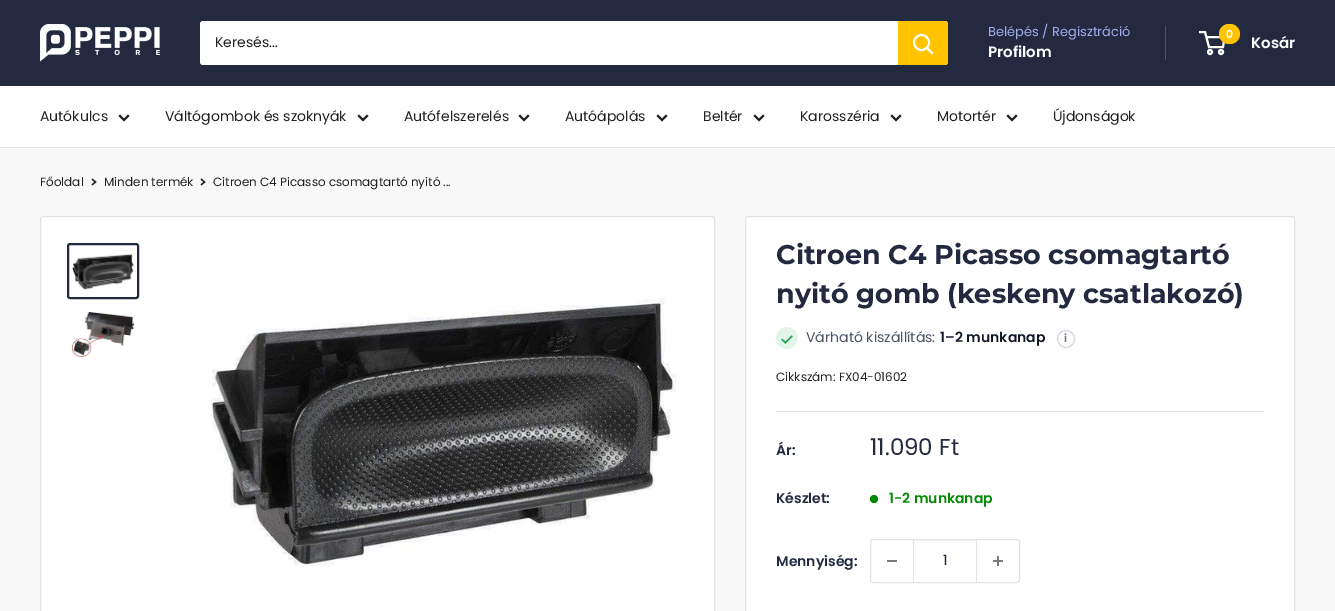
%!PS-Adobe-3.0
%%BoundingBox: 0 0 1335 611
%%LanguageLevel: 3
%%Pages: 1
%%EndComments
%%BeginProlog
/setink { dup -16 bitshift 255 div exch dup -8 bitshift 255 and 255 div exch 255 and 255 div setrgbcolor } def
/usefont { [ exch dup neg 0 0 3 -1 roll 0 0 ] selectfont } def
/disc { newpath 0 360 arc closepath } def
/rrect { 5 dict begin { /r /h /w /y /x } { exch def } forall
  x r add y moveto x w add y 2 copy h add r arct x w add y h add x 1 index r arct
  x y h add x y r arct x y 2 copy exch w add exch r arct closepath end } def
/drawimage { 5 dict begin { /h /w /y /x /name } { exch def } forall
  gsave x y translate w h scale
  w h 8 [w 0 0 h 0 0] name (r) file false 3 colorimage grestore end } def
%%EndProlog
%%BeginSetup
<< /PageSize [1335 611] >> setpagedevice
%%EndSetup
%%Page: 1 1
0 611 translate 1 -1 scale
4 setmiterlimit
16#F8F8F8 setink
0 0 1335 611 rectfill
16#232A40 setink
0 0 1335 86 rectfill
(img1.raw) 40 24 120 38 drawimage
16#FFFFFF setink
200 21 748 44 3 rrect fill
/Poppins-Regular 14 usefont
16#212121 setink
215 47 moveto (Keresés...) show
16#FFC300 setink
898 21 moveto 945 21 lineto 946.5 21 948 22.5 948 24 curveto 948 62 lineto 948 63.5 946.5 65 945 65 curveto 898 65 lineto closepath fill
16#FFFFFF setink
2 setlinewidth
2 setlinecap
932 53 moveto 927 48 lineto stroke
0 setlinecap
921.5 42.5 7.5 disc stroke
/Poppins-Regular 13 usefont
16#A3AFEF setink
988 36 moveto (Belépés / Regisztráció) show
16#495275 setink
1165 26 1 34 rectfill
/Poppins-SemiBold 15 usefont
16#FFFFFF setink
988 57 moveto (Profilom) show
1210 52 2 disc stroke
1221 52 2 disc stroke
1206.5 37 moveto 1224.5 37 lineto 1223 47 lineto 1209 47 lineto 1205 32 lineto 1199 32 lineto stroke
16#FFC300 setink
1219 24 21 20 10 rrect fill
/Poppins-SemiBold 11 usefont
16#FFFFFF setink
1226 38 moveto (0) show
/Poppins-SemiBold 15 usefont
1251 48 moveto (Kosár) show
0 86 1335 61 rectfill
16#E1E3E4 setink
0 147 1335 1 rectfill
/Poppins-Regular 14 usefont
16#212121 setink
40 121 moveto (Autókulcs) show
2 setlinecap
128 116 moveto 124 120 lineto 120 116 lineto stroke
165 121 moveto (Váltógombok és szoknyák) show
367 116 moveto 363 120 lineto 359 116 lineto stroke
404 121 moveto (Autófelszerelés) show
528 116 moveto 524 120 lineto 520 116 lineto stroke
565 121 moveto (Autóápolás) show
666 116 moveto 662 120 lineto 658 116 lineto stroke
703 121 moveto (Beltér) show
763 116 moveto 759 120 lineto 755 116 lineto stroke
800 121 moveto (Karosszéria) show
900 116 moveto 896 120 lineto 892 116 lineto stroke
937 121 moveto (Motortér) show
1016 116 moveto 1012 120 lineto 1008 116 lineto stroke
1053 121 moveto (Újdonságok) show
/Poppins-Regular 12 usefont
40 186 moveto (Főoldal) show
1.3 setlinewidth
92.5 179.5 moveto 95.5 182 lineto 92.5 184.5 lineto stroke
104 186 moveto (Minden termék) show
201.5 179.5 moveto 204.5 182 lineto 201.5 184.5 lineto stroke
213 186 moveto (Citroen C4 Picasso csomagtartó nyitó ...) show
16#FFFFFF setink
40.5 216.5 674 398 2.5 rrect gsave fill grestore
16#E1E3E4 setink
1 setlinewidth
0 setlinecap
stroke
16#232A40 setink
2 setlinewidth
68 244 70 54 2 rrect stroke
(img2.raw) 72 253 62 37 drawimage
(img3.raw) 71 312 64 46 drawimage
(img4.raw) 209 298 468 271 drawimage
16#FFFFFF setink
745.5 216.5 549 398 2.5 rrect gsave fill grestore
16#E1E3E4 setink
1 setlinewidth
stroke
/Montserrat-Bold 27 usefont
16#232A40 setink
776 264 moveto (Citroen C4 Picasso csomagtartó) show
776 303 moveto (nyitó gomb \(keskeny csatlakozó\)) show
(img5.raw) 776 327 22 22 drawimage
/Poppins-Regular 14 usefont
16#4B5563 setink
806 342 moveto (Várható kiszállítás:) show
/Poppins-SemiBold 14 usefont
16#111827 setink
940 342 moveto (1–2 munkanap) show
16#D1D5DB setink
1066 339 8.5 disc stroke
/Poppins-SemiBold 11 usefont
16#6B7280 setink
1064 342 moveto (i) show
/Poppins-Regular 12 usefont
16#212121 setink
776 381 moveto (Cikkszám: FX04-01602) show
16#E1E3E4 setink
776 411 488 1 rectfill
/Poppins-SemiBold 14 usefont
16#232A40 setink
776 455 moveto (Ár:) show
/Poppins-Regular 23 usefont
870 455 moveto (11.090 Ft) show
/Poppins-SemiBold 14 usefont
776 503 moveto (Készlet:) show
16#008A00 setink
874 499 4 disc fill
889 503 moveto (1-2 munkanap) show
16#232A40 setink
776 566 moveto (Mennyiség:) show
16#E1E3E4 setink
870.5 539.5 149 43 2.5 rrect stroke
[
    [887 560 10 2 16#7A7A7A]
    [914 540 62 1 16#F3F4F4]
    [976 540 1 42 16#E1E3E4]
    [913 540 1 42 16#E1E3E4]
] { aload pop setink rectfill } forall
/Poppins-Regular 14 usefont
16#232A40 setink
943 565 moveto (1) show
(img6.raw) 993 556 10 10 drawimage
showpage
%%EOF
